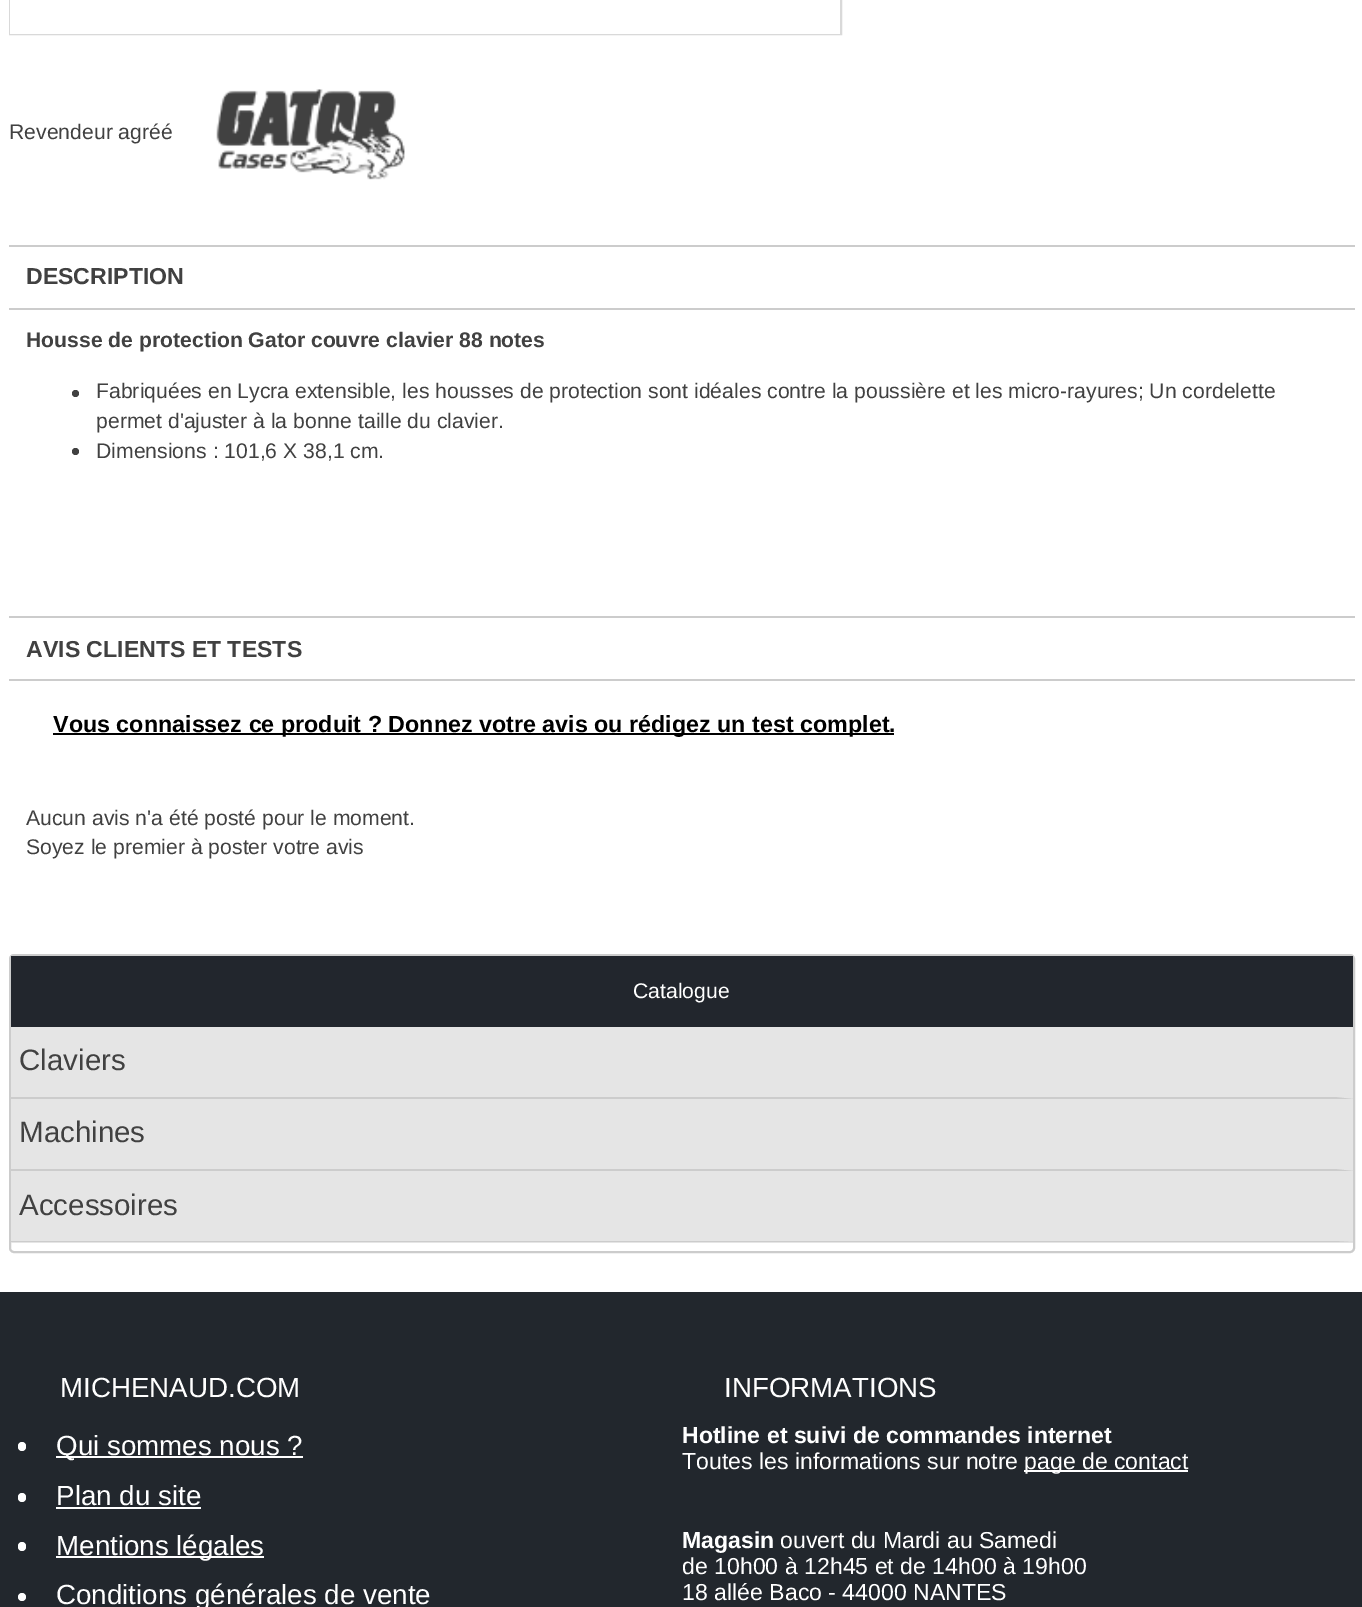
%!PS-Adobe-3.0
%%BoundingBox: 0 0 1362 1607
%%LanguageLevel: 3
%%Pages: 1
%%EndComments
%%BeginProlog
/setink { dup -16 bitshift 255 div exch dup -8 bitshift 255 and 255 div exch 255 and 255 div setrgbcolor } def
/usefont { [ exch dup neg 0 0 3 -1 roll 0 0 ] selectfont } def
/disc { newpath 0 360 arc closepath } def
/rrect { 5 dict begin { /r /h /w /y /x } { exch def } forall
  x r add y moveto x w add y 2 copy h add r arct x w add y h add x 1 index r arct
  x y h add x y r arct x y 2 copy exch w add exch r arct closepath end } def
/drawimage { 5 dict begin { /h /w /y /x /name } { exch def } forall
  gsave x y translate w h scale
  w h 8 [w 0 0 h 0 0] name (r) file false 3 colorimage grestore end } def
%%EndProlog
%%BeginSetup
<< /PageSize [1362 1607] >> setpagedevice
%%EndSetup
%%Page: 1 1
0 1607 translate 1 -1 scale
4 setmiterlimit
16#FFFFFF setink
0 0 1362 1607 rectfill
16#D9D9D9 setink
2 setlinewidth
10 -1 831 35 rectstroke
16#FFFFFF setink
10 0 830 34 rectfill
/LiberationSans-Regular 21.18 usefont
16#414141 setink
9 139 moveto (Revendeur agréé) show
(img1.raw) 216 89 189 91 drawimage
16#CCCCCC setink
9 245 1346 2 rectfill
9 308 1346 2 rectfill
/LiberationSans-Bold 23.1 usefont
16#414141 setink
26 284 moveto (DESCRIPTION) show
/LiberationSans-Bold 21.18 usefont
26 347 moveto (Housse de protection Gator couvre clavier 88 notes) show
75.5 393.5 3.5 disc fill
/LiberationSans-Regular 21.18 usefont
96 398 moveto (Fabriquées en Lycra extensible, les housses de protection sont idéales contre la poussière et les micro-rayures; Un cordelette) show
96 428 moveto (permet d'ajuster à la bonne taille du clavier.) show
75.5 451.5 3.5 disc fill
96 458 moveto (Dimensions : 101,6 X 38,1 cm.) show
16#CCCCCC setink
9 616 1346 2 rectfill
9 679 1346 2 rectfill
/LiberationSans-Bold 23.1 usefont
16#414141 setink
26 657 moveto (AVIS CLIENTS ET TESTS) show
16#000000 setink
53 733 841 2 rectfill
/LiberationSans-Bold 23.3 usefont
53 732 moveto (Vous connaissez ce produit ? Donnez votre avis ou rédigez un test complet.) show
/LiberationSans-Regular 21.18 usefont
16#414141 setink
26 825 moveto (Aucun avis n'a été posté pour le moment.) show
26 854 moveto (Soyez le premier à poster votre avis) show
16#CCCCCC setink
10 955 1344 297 4 rrect stroke
16#22262D setink
11 956 1342 71 rectfill
16#FFFFFF setink
633 998 moveto (Catalogue) show
16#E5E5E5 setink
11 1027 1342 216 rectfill
16#CCCCCC setink
1353 1099 moveto 10 1099 lineto 10 1097 lineto 1335 1097 lineto closepath fill
/LiberationSans-Regular 29.5 usefont
16#414141 setink
19 1070 moveto (Claviers) show
16#CCCCCC setink
1353 1171 moveto 10 1171 lineto 10 1169 lineto 1335 1169 lineto closepath fill
16#414141 setink
19 1142 moveto (Machines) show
16#CCCCCC setink
1353 1242 moveto 10 1242 lineto 10 1241 lineto 1335 1241 lineto closepath fill
16#414141 setink
19 1215 moveto (Accessoires) show
16#22272D setink
0 1292 1362 315 rectfill
/LiberationSans-Regular 27.75 usefont
16#FFFFFF setink
60 1397 moveto (MICHENAUD.COM) show
18 1442 8 9 4 rrect fill
56 1456 247 2 rectfill
56 1455 moveto (Qui sommes nous ?) show
18 1493 8 9 4 rrect fill
56 1505 moveto (Plan du site) show
56 1507 145 2 rectfill
18 1542 8 9 4 rrect fill
56 1556 208 2 rectfill
56 1555 moveto (Mentions légales) show
22 1597 4 disc fill
56 1604 moveto (Conditions générales de vente) show
724 1397 moveto (INFORMATIONS) show
/LiberationSans-Bold 23.1 usefont
682 1443 moveto (Hotline et suivi de commandes internet) show
/LiberationSans-Regular 23.1 usefont
682 1469 moveto (Toutes les informations sur notre) show
1024 1470 164 2 rectfill
1024 1469 moveto (page de contact) show
/LiberationSans-Bold 23.1 usefont
682 1548 moveto (Magasin) show
/LiberationSans-Regular 23.1 usefont
[
    [(ouvert du Mardi au Samedi) 780 1548]
    [(de 10h00 à 12h45 et de 14h00 à 19h00) 682 1574]
    [(18 allée Baco - 44000 NANTES) 682 1600]
] { aload pop moveto show } forall
showpage
%%EOF
